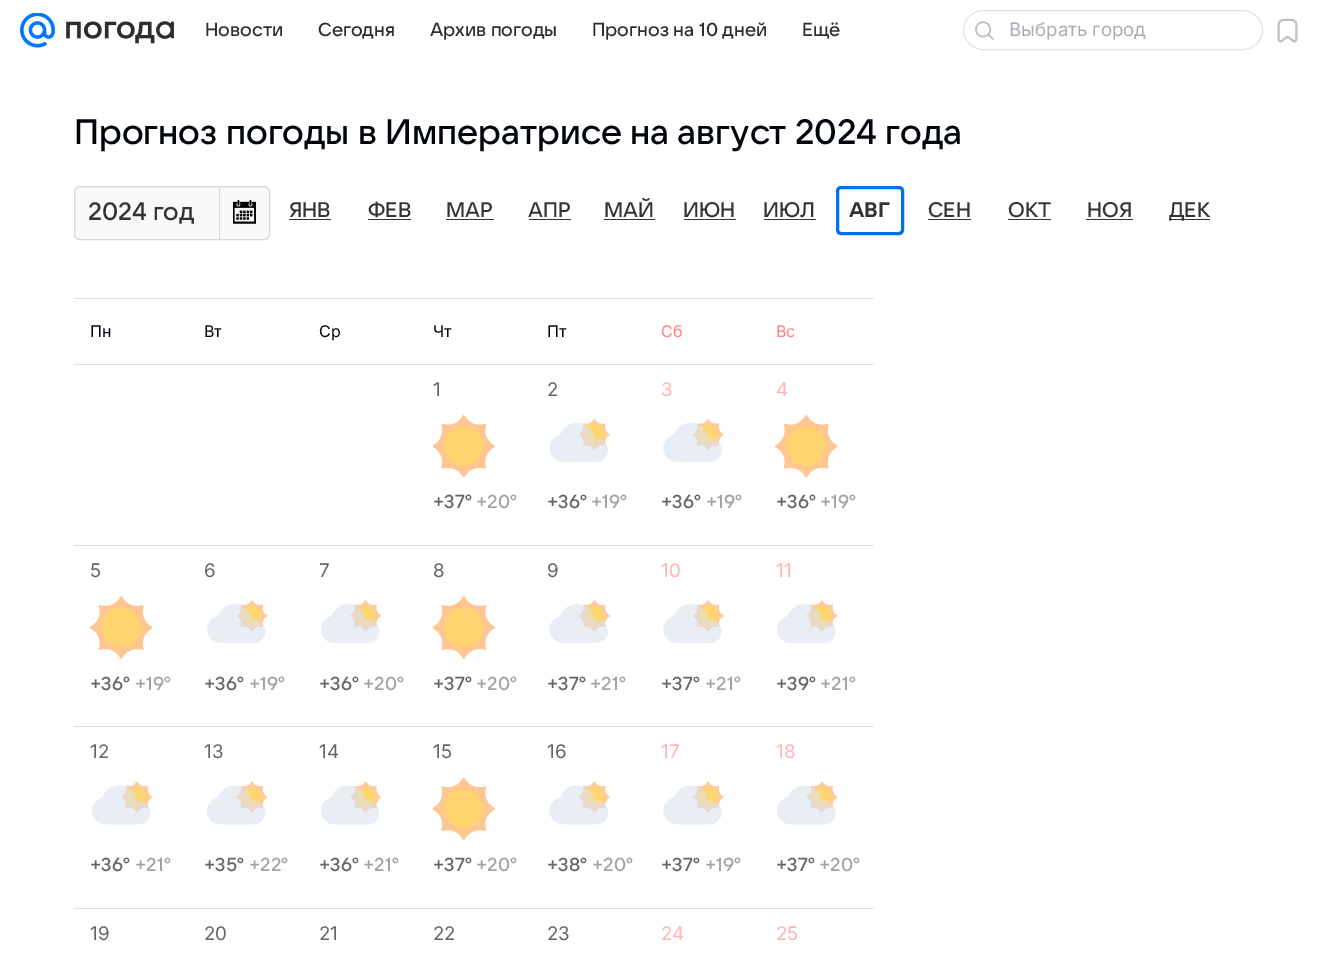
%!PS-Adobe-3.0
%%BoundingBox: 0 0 1322 954
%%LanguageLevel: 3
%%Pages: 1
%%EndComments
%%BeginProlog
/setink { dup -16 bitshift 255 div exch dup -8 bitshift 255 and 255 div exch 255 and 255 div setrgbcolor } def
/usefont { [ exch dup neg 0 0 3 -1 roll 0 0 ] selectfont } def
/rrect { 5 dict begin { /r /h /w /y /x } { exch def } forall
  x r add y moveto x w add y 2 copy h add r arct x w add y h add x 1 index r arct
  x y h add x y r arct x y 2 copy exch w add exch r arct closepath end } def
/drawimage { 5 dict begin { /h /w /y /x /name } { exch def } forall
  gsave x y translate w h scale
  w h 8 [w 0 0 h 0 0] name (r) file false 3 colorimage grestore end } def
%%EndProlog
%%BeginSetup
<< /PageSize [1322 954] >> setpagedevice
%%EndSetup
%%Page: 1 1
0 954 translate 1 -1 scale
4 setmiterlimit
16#FFFFFF setink
0 0 1322 954 rectfill
(img1.raw) 20 13 35 35 drawimage
(img2.raw) 66 21 108 23 drawimage
/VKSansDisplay-Medium 18.75 usefont
16#2C2D2E setink
[
    [(Новости) 205 36]
    [(Сегодня) 318 36]
    [(Архив погоды) 430 36]
    [(Прогноз на 10 дней) 592 36]
    [(Ещё) 802 36]
] { aload pop moveto show } forall
16#E0E2E8 setink
963.5 10.5 299 39 19.5 rrect stroke
(img3.raw) 975 21 19 19 drawimage
/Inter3-Regular 18.75 usefont
16#AAADB3 setink
1009 36 moveto (Выбрать город) show
(img4.raw) 1277 18 21 25 drawimage
/VKSansDisplay-Medium 35 usefont
16#00050C setink
74 144 moveto (Прогноз погоды в Императрисе на август 2024 года) show
16#F9F9F9 setink
74.5 186.5 195 53 5.5 rrect gsave fill grestore
16#D7D7D7 setink
stroke
/VKSansDisplay-Medium 25 usefont
16#333333 setink
88 220 moveto (2024 год) show
16#D7D7D7 setink
219 188 1 51 rectfill
(img5.raw) 233 200 23 24 drawimage
/VKSansDisplay-Medium 21 usefont
16#333333 setink
289 217 moveto (ЯНВ) show
289 219 42 1 rectfill
368 217 moveto (ФЕВ) show
368 219 43 1 rectfill
446 217 moveto (МАР) show
446 219 48 1 rectfill
528 217 moveto (АПР) show
529 219 42 1 rectfill
604 217 moveto (МАЙ) show
604 219 51 1 rectfill
683 217 moveto (ИЮН) show
684 219 52 1 rectfill
763 217 moveto (ИЮЛ) show
764 219 52 1 rectfill
16#0070F0 setink
3 setlinewidth
837.5 187.5 65 46 3.5 rrect stroke
/VKSansDisplay-Bold 21 usefont
16#333333 setink
849 217 moveto (АВГ) show
/VKSansDisplay-Medium 21 usefont
928 217 moveto (СЕН) show
928 219 43 1 rectfill
1008 217 moveto (ОКТ) show
1008 219 43 1 rectfill
1087 217 moveto (НОЯ) show
1086 219 47 1 rectfill
1169 219 41 1 rectfill
1169 217 moveto (ДЕК) show
16#E1E0E0 setink
74 298 800 1 rectfill
74 364 800 1 rectfill
/Inter-Regular 16 usefont
16#00050C setink
[
    [(Пн) 90 337]
    [(Вт) 204 337]
    [(Ср) 319 337]
    [(Чт) 433 337]
    [(Пт) 547 337]
] { aload pop moveto show } forall
16#FF8080 setink
661 337 moveto (Сб) show
776 337 moveto (Вс) show
16#E1E0E0 setink
74 545 800 1 rectfill
/Inter-Regular 18.75 usefont
16#666666 setink
433 396 moveto (1) show
(img6.raw) 433 415 62 63 drawimage
/VKSansDisplay-Medium 18.75 usefont
433 508 moveto (+37°) show
16#A3A3A3 setink
476 508 moveto (+20°) show
/Inter-Regular 18.75 usefont
16#666666 setink
547 396 moveto (2) show
(img7.raw) 549 419 61 43 drawimage
/VKSansDisplay-Medium 18.75 usefont
547 508 moveto (+36°) show
16#A3A3A3 setink
591 508 moveto (+19°) show
/Inter-Regular 18.75 usefont
16#FFB3B3 setink
661 396 moveto (3) show
(img8.raw) 663 419 61 43 drawimage
/VKSansDisplay-Medium 18.75 usefont
16#666666 setink
661 508 moveto (+36°) show
16#A3A3A3 setink
706 508 moveto (+19°) show
/Inter-Regular 18.75 usefont
16#FFB3B3 setink
776 396 moveto (4) show
(img9.raw) 775 415 63 63 drawimage
/VKSansDisplay-Medium 18.75 usefont
16#666666 setink
776 508 moveto (+36°) show
16#A3A3A3 setink
820 508 moveto (+19°) show
16#E1E0E0 setink
74 726 800 1 rectfill
/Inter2-Regular 18.75 usefont
16#666666 setink
90 577 moveto (5) show
(img10.raw) 90 596 63 63 drawimage
/VKSansDisplay-Medium 18.75 usefont
90 690 moveto (+36°) show
16#A3A3A3 setink
135 690 moveto (+19°) show
/Inter-Regular 18.75 usefont
16#666666 setink
204 577 moveto (6) show
(img11.raw) 207 600 61 43 drawimage
/VKSansDisplay-Medium 18.75 usefont
204 690 moveto (+36°) show
16#A3A3A3 setink
249 690 moveto (+19°) show
/Inter-Regular 18.75 usefont
16#666666 setink
319 577 moveto (7) show
(img12.raw) 320 600 61 43 drawimage
/VKSansDisplay-Medium 18.75 usefont
319 690 moveto (+36°) show
16#A3A3A3 setink
363 690 moveto (+20°) show
/Inter-Regular 18.75 usefont
16#666666 setink
433 577 moveto (8) show
(img13.raw) 433 596 62 63 drawimage
/VKSansDisplay-Medium 18.75 usefont
433 690 moveto (+37°) show
16#A3A3A3 setink
476 690 moveto (+20°) show
/Inter-Regular 18.75 usefont
16#666666 setink
547 577 moveto (9) show
(img14.raw) 549 600 61 43 drawimage
/VKSansDisplay-Medium 18.75 usefont
547 690 moveto (+37°) show
16#A3A3A3 setink
590 690 moveto (+21°) show
/Inter-Regular 18.75 usefont
16#FFB3B3 setink
661 577 moveto (10) show
(img15.raw) 663 600 61 43 drawimage
/VKSansDisplay-Medium 18.75 usefont
16#666666 setink
661 690 moveto (+37°) show
16#A3A3A3 setink
705 690 moveto (+21°) show
/Inter-Regular 18.75 usefont
16#FFB3B3 setink
776 577 moveto (11) show
(img11.raw) 777 600 61 43 drawimage
/VKSansDisplay-Medium 18.75 usefont
16#666666 setink
776 690 moveto (+39°) show
16#A3A3A3 setink
820 690 moveto (+21°) show
16#E1E0E0 setink
74 908 800 1 rectfill
/Inter-Regular 18.75 usefont
16#666666 setink
90 758 moveto (12) show
(img16.raw) 92 781 61 44 drawimage
/VKSansDisplay-Medium 18.75 usefont
90 871 moveto (+36°) show
16#A3A3A3 setink
135 871 moveto (+21°) show
/Inter-Regular 18.75 usefont
16#666666 setink
204 758 moveto (13) show
(img16.raw) 207 781 61 44 drawimage
/VKSansDisplay-Medium 18.75 usefont
204 871 moveto (+35°) show
16#A3A3A3 setink
249 871 moveto (+22°) show
/Inter-Regular 18.75 usefont
16#666666 setink
319 758 moveto (14) show
(img17.raw) 320 781 61 44 drawimage
/VKSansDisplay-Medium 18.75 usefont
319 871 moveto (+36°) show
16#A3A3A3 setink
363 871 moveto (+21°) show
/Inter2-Regular 18.75 usefont
16#666666 setink
433 758 moveto (15) show
(img18.raw) 433 778 62 62 drawimage
/VKSansDisplay-Medium 18.75 usefont
433 871 moveto (+37°) show
16#A3A3A3 setink
476 871 moveto (+20°) show
/Inter-Regular 18.75 usefont
16#666666 setink
547 758 moveto (16) show
(img19.raw) 549 781 61 44 drawimage
/VKSansDisplay-Medium 18.75 usefont
547 871 moveto (+38°) show
16#A3A3A3 setink
592 871 moveto (+20°) show
/Inter-Regular 18.75 usefont
16#FFB3B3 setink
661 758 moveto (17) show
(img20.raw) 663 781 61 44 drawimage
/VKSansDisplay-Medium 18.75 usefont
16#666666 setink
661 871 moveto (+37°) show
16#A3A3A3 setink
705 871 moveto (+19°) show
/Inter-Regular 18.75 usefont
16#FFB3B3 setink
776 758 moveto (18) show
(img16.raw) 777 781 61 44 drawimage
/VKSansDisplay-Medium 18.75 usefont
16#666666 setink
776 871 moveto (+37°) show
16#A3A3A3 setink
819 871 moveto (+20°) show
/Inter-Regular 18.75 usefont
16#666666 setink
[
    [(19) 90 940]
    [(20) 204 940]
    [(21) 319 940]
    [(22) 433 940]
    [(23) 547 940]
] { aload pop moveto show } forall
16#FFB3B3 setink
661 940 moveto (24) show
/Inter2-Regular 18.75 usefont
776 940 moveto (25) show
showpage
%%EOF
